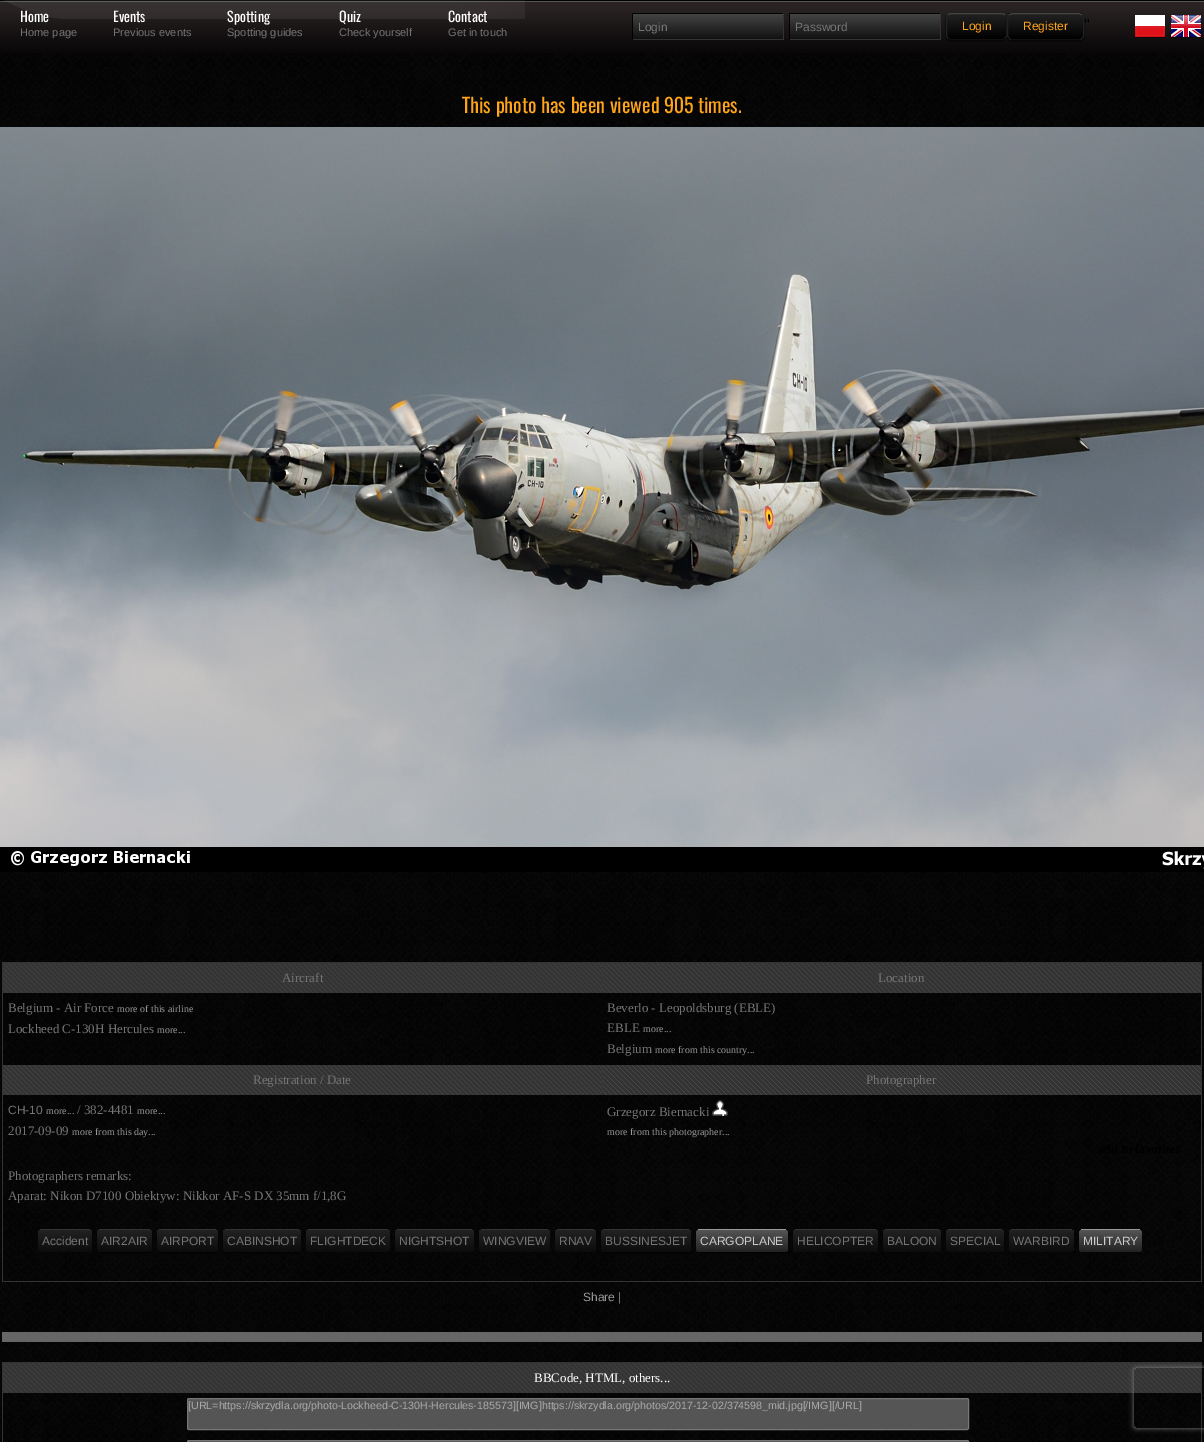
%!PS-Adobe-3.0
%%BoundingBox: 0 0 1204 1442
%%LanguageLevel: 3
%%Pages: 1
%%EndComments
%%BeginProlog
/setink { dup -16 bitshift 255 div exch dup -8 bitshift 255 and 255 div exch 255 and 255 div setrgbcolor } def
/usefont { [ exch dup neg 0 0 3 -1 roll 0 0 ] selectfont } def
/setalpha { dup .setfillconstantalpha .setstrokeconstantalpha } def
/rrect { 5 dict begin { /r /h /w /y /x } { exch def } forall
  x r add y moveto x w add y 2 copy h add r arct x w add y h add x 1 index r arct
  x y h add x y r arct x y 2 copy exch w add exch r arct closepath end } def
/softshadow { 12 dict begin { /a /b /q /h /w /y /x } { exch def } forall gsave /was 0 def
  9 -2 -9 { dup b mul 4 div /e exch def 1 sub .425 mul 2.718 exch exp 1 add a .99 .min exch div /now exch def
    1 1 now sub 1 was sub div sub setalpha /was now def
    w h .min e 2 mul add 0 gt { x e sub y e sub w e 2 mul add h e 2 mul add
      q e add b .6 mul add w h .min 2 div e add .min 0 .max rrect fill } if } for grestore end } def
/drawimage { 5 dict begin { /h /w /y /x /name } { exch def } forall
  gsave x y translate w h scale
  w h 8 [w 0 0 h 0 0] name (r) file false 3 colorimage grestore end } def
%%EndProlog
%%BeginSetup
<< /PageSize [1204 1442] /PageUsesTransparency true >> setpagedevice
%%EndSetup
%%Page: 1 1
0 .pushpdf14devicefilter
0 1442 translate 1 -1 scale
4 setmiterlimit
16#FFFFFF setink
0 0 1204 1442 rectfill
(img1.raw) 0 53 1204 1389 drawimage
(img2.raw) 0 0 1204 53 drawimage
(img3.raw) 3 0 522 19 drawimage
/Oswald-Regular 14 usefont
20 22 moveto (Home) show
/Arimo-Regular 11 usefont
16#757575 setink
20 36 moveto (Home page) show
/Oswald-Regular 14 usefont
16#FFFFFF setink
113 22 moveto (Events) show
/Arimo-Regular 11 usefont
16#757575 setink
113 36 moveto (Previous events) show
/Oswald-Regular 14 usefont
16#FFFFFF setink
227 22 moveto (Spotting) show
/Arimo-Regular 11 usefont
16#757575 setink
227 36 moveto (Spotting guides) show
/Oswald-Regular 14 usefont
16#FFFFFF setink
339 22 moveto (Quiz) show
/Arimo-Regular 11 usefont
16#757575 setink
339 36 moveto (Check yourself) show
/Oswald-Regular 14 usefont
16#FFFFFF setink
448 22 moveto (Contact) show
/Arimo-Regular 11 usefont
16#757575 setink
448 36 moveto (Get in touch) show
gsave 633 14 moveto 783 14 lineto 783 39 lineto 633 39 lineto closepath clip newpath
<< /ShadingType 2 /ColorSpace /DeviceRGB /Coords [633 14 633 39] /Extend [true true] /Function << /FunctionType 2 /Domain [0 1] /C0 [0.267 0.267 0.267] /C1 [0.067 0.067 0.067] /N 1 >> >> shfill grestore
[
    [632 13 152 1 16#000000]
    [783 13 1 27 16#333333]
    [632 39 152 1 16#333333]
    [632 13 1 27 16#000000]
] { aload pop setink rectfill } forall
/Arimo-Regular 12 usefont
16#757575 setink
638 31 moveto (Login) show
gsave 790 14 moveto 940 14 lineto 940 39 lineto 790 39 lineto closepath clip newpath
<< /ShadingType 2 /ColorSpace /DeviceRGB /Coords [790 14 790 39] /Extend [true true] /Function << /FunctionType 2 /Domain [0 1] /C0 [0.267 0.267 0.267] /C1 [0.067 0.067 0.067] /N 1 >> >> shfill grestore
[
    [789 13 152 1 16#000000]
    [940 13 1 27 16#333333]
    [789 39 152 1 16#333333]
    [789 13 1 27 16#000000]
] { aload pop setink rectfill } forall
16#757575 setink
795 31 moveto (Password) show
16#000000 setink
946 14 61 27 5 1 1 softshadow
gsave
946 13 61 27 5 rrect clip newpath
gsave 946 14 moveto 1007 14 lineto 1007 39 lineto 946 39 lineto closepath clip newpath
<< /ShadingType 2 /ColorSpace /DeviceRGB /Coords [947 14 947 39] /Extend [true true] /Function << /FunctionType 2 /Domain [0 1] /C0 [0.133 0.133 0.133] /C1 [0 0 0] /N 1 >> >> shfill grestore
grestore
16#444444 setink
948 15 moveto 948.5 14 950 13.5 951 13.5 curveto 1002 13.5 lineto 1003 13.5 1004.5 14 1005 15 curveto stroke
16#222222 setink
1005 15 moveto 1006 15.5 1006.5 17 1006.5 18 curveto 1006.5 35 lineto 1006.5 36 1006 37.5 1005 38 curveto stroke
16#111111 setink
1005 38 moveto 1004.5 39 1003 39.5 1002 39.5 curveto 951 39.5 lineto 950 39.5 948.5 39 948 38 curveto stroke
16#222222 setink
948 38 moveto 947 37.5 946.5 36 946.5 35 curveto 946.5 18 lineto 946.5 17 947 15.5 948 15 curveto stroke
16#FFA319 setink
962 30 moveto (Login) show
16#000000 setink
1007 14 77 27 5 1 1 softshadow
gsave
1007 13 77 27 5 rrect clip newpath
gsave 1007 13 moveto 1084 13 lineto 1084 14 lineto 1007 14 lineto closepath clip newpath
<< /ShadingType 2 /ColorSpace /DeviceRGB /Coords [1008 -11 1008 14] /Extend [true true] /Function << /FunctionType 2 /Domain [0 1] /C0 [0.133 0.133 0.133] /C1 [0 0 0] /N 1 >> >> shfill grestore
gsave 1007 14 moveto 1084 14 lineto 1084 39 lineto 1007 39 lineto closepath clip newpath
<< /ShadingType 2 /ColorSpace /DeviceRGB /Coords [1008 14 1008 39] /Extend [true true] /Function << /FunctionType 2 /Domain [0 1] /C0 [0.133 0.133 0.133] /C1 [0 0 0] /N 1 >> >> shfill grestore
gsave 1007 39 moveto 1084 39 lineto 1084 40 lineto 1007 40 lineto closepath clip newpath
<< /ShadingType 2 /ColorSpace /DeviceRGB /Coords [1008 39 1008 64] /Extend [true true] /Function << /FunctionType 2 /Domain [0 1] /C0 [0.133 0.133 0.133] /C1 [0 0 0] /N 1 >> >> shfill grestore
grestore
16#444444 setink
1009 15 moveto 1011.5 13.5 lineto 1079.5 13.5 lineto 1082 15 lineto stroke
16#222222 setink
1082 15 moveto 1083 15.5 1083.5 17 1083.5 18 curveto 1083.5 35 lineto 1083.5 36 1083 37.5 1082 38 curveto stroke
16#111111 setink
1082 38 moveto 1079.5 39.5 lineto 1011.5 39.5 lineto 1009 38 lineto stroke
16#222222 setink
1009 38 moveto 1008 37.5 1007.5 36 1007.5 35 curveto 1007.5 18 lineto 1007.5 17 1008 15.5 1009 15 curveto stroke
16#FFA319 setink
1023 30 moveto (Register) show
/Arimo-Regular 16 usefont
16#000000 setink
1084 30 moveto (") show
(img4.raw) 1134 15 32 23 drawimage
(img5.raw) 1170 15 32 23 drawimage
/Oswald-Regular 20 usefont
16#FFA319 setink
462 113 moveto (This photo has been viewed 905 times.) show
(img6.raw) 0 127 1204 745 drawimage
[
    [2 962 1200 1 16#333333]
    [1201 962 1 320 16#333333]
    [2 1281 1200 1 16#333333]
    [2 962 1 320 16#333333]
] { aload pop setink rectfill } forall
(img7.raw) 3 963 599 30 drawimage
/LiberationSerif-Regular 13 usefont
16#757575 setink
282 982 moveto (Aircraft) show
(img8.raw) 602 963 599 30 drawimage
878 982 moveto (Location) show
8 1012 moveto (Belgium - Air Force) show
/LiberationSerif-Regular 10 usefont
16#999999 setink
117 1012 moveto (more of this airline) show
/LiberationSerif-Regular 13 usefont
16#757575 setink
8 1033 moveto (Lockheed C-130H Hercules) show
/LiberationSerif-Regular 10 usefont
16#999999 setink
157 1033 moveto (more...) show
/LiberationSerif-Regular 13 usefont
16#757575 setink
607 1012 moveto (Beverlo - Leopoldsburg \(EBLE\)) show
607 1032 moveto (EBLE) show
/LiberationSerif-Regular 10 usefont
16#999999 setink
643 1032 moveto (more...) show
/LiberationSerif-Regular 13 usefont
16#757575 setink
607 1053 moveto (Belgium) show
/LiberationSerif-Regular 10 usefont
16#999999 setink
655 1053 moveto (more from this country...) show
(img9.raw) 3 1065 599 30 drawimage
/LiberationSerif-Regular 13 usefont
16#757575 setink
253 1084 moveto (Registration / Date) show
(img10.raw) 602 1065 599 30 drawimage
866 1084 moveto (Photographer) show
/Arimo-Regular 12 usefont
8 1114 moveto (CH-10) show
/LiberationSerif-Regular 10 usefont
16#999999 setink
46 1114 moveto (more...) show
/LiberationSerif-Regular 13 usefont
16#757575 setink
77 1114 moveto (/ 382-4481) show
/LiberationSerif-Regular 10 usefont
16#999999 setink
137 1114 moveto (more...) show
/LiberationSerif-Regular 13 usefont
16#757575 setink
8 1135 moveto (2017-09-09) show
/LiberationSerif-Regular 10 usefont
16#999999 setink
72 1135 moveto (more from this day...) show
/LiberationSerif-Regular 13 usefont
16#757575 setink
607 1116 moveto (Grzegorz Biernacki) show
(img11.raw) 712 1100 16 16 drawimage
/LiberationSerif-Regular 10 usefont
16#999999 setink
607 1135 moveto (more from this photographer...) show
(img12.raw) 1099 1144 81 9 drawimage
/LiberationSerif-Regular 13 usefont
16#757575 setink
8 1180 moveto (Photographers remarks:) show
8 1200 moveto (Aparat: Nikon D7100 Obiektyw: Nikkor AF-S DX 35mm f/1,8G) show
16#111111 setink
38 1229 54 23 4 rrect fill
gsave
38 1229 54 23 4 rrect clip newpath
gsave 38 1230 moveto 92 1230 lineto 92 1248 lineto 92 1250 90 1252 88 1252 curveto 42 1252 lineto 40 1252 38 1250 38 1248 curveto closepath clip newpath
<< /ShadingType 2 /ColorSpace /DeviceRGB /Coords [38 1230 38 1252] /Extend [true true] /Function << /FunctionType 2 /Domain [0 1] /C0 [0.133 0.133 0.133] /C1 [0.047 0.047 0.047] /N 1 >> >> shfill grestore
grestore
/Arimo-Regular 12 usefont
16#757575 setink
42 1245 moveto (Accident) show
16#333333 setink
40 1229 50 1 rectfill
16#000000 setink
97 1230 55 23 4 1 1 softshadow
16#111111 setink
97 1229 55 23 4 rrect fill
gsave
97 1229 55 23 4 rrect clip newpath
gsave 97 1230 moveto 152 1230 lineto 152 1248 lineto 152 1250 150 1252 148 1252 curveto 101 1252 lineto 99 1252 97 1250 97 1248 curveto closepath clip newpath
<< /ShadingType 2 /ColorSpace /DeviceRGB /Coords [97 1230 97 1252] /Extend [true true] /Function << /FunctionType 2 /Domain [0 1] /C0 [0.133 0.133 0.133] /C1 [0.047 0.047 0.047] /N 1 >> >> shfill grestore
grestore
16#757575 setink
101 1245 moveto (AIR2AIR) show
16#333333 setink
99 1229 51 1 rectfill
16#000000 setink
157 1230 61 23 4 1 1 softshadow
16#111111 setink
157 1229 61 23 4 rrect fill
gsave
157 1229 61 23 4 rrect clip newpath
gsave 157 1230 moveto 218 1230 lineto 218 1248 lineto 218 1250 216 1252 214 1252 curveto 161 1252 lineto 159 1252 157 1250 157 1248 curveto closepath clip newpath
<< /ShadingType 2 /ColorSpace /DeviceRGB /Coords [157 1230 157 1252] /Extend [true true] /Function << /FunctionType 2 /Domain [0 1] /C0 [0.133 0.133 0.133] /C1 [0.047 0.047 0.047] /N 1 >> >> shfill grestore
grestore
16#757575 setink
161 1245 moveto (AIRPORT) show
16#333333 setink
159 1229 57 1 rectfill
16#000000 setink
223 1230 78 23 4 1 1 softshadow
16#111111 setink
223 1229 78 23 4 rrect fill
gsave
223 1229 78 23 4 rrect clip newpath
gsave 223 1230 moveto 301 1230 lineto 301 1248 lineto 301 1250 299 1252 297 1252 curveto 227 1252 lineto 225 1252 223 1250 223 1248 curveto closepath clip newpath
<< /ShadingType 2 /ColorSpace /DeviceRGB /Coords [223 1230 223 1252] /Extend [true true] /Function << /FunctionType 2 /Domain [0 1] /C0 [0.133 0.133 0.133] /C1 [0.047 0.047 0.047] /N 1 >> >> shfill grestore
grestore
16#757575 setink
227 1245 moveto (CABINSHOT) show
16#333333 setink
225 1229 74 1 rectfill
16#111111 setink
306 1229 84 23 4 rrect fill
gsave
306 1229 84 23 4 rrect clip newpath
gsave 306 1230 moveto 390 1230 lineto 390 1248 lineto 390 1250 388 1252 386 1252 curveto 310 1252 lineto 308 1252 306 1250 306 1248 curveto closepath clip newpath
<< /ShadingType 2 /ColorSpace /DeviceRGB /Coords [306 1230 306 1252] /Extend [true true] /Function << /FunctionType 2 /Domain [0 1] /C0 [0.133 0.133 0.133] /C1 [0.047 0.047 0.047] /N 1 >> >> shfill grestore
grestore
16#757575 setink
310 1245 moveto (FLIGHTDECK) show
16#333333 setink
308 1229 80 1 rectfill
16#111111 setink
395 1229 79 23 4 rrect fill
gsave
395 1229 79 23 4 rrect clip newpath
gsave 395 1230 moveto 474 1230 lineto 474 1248 lineto 474 1250 472 1252 470 1252 curveto 399 1252 lineto 397 1252 395 1250 395 1248 curveto closepath clip newpath
<< /ShadingType 2 /ColorSpace /DeviceRGB /Coords [395 1230 395 1252] /Extend [true true] /Function << /FunctionType 2 /Domain [0 1] /C0 [0.133 0.133 0.133] /C1 [0.047 0.047 0.047] /N 1 >> >> shfill grestore
grestore
16#757575 setink
399 1245 moveto (NIGHTSHOT) show
16#333333 setink
397 1229 75 1 rectfill
16#111111 setink
479 1229 71 23 4 rrect fill
gsave
479 1229 71 23 4 rrect clip newpath
gsave 479 1230 moveto 550 1230 lineto 550 1248 lineto 550 1250 548 1252 546 1252 curveto 483 1252 lineto 481 1252 479 1250 479 1248 curveto closepath clip newpath
<< /ShadingType 2 /ColorSpace /DeviceRGB /Coords [479 1230 479 1252] /Extend [true true] /Function << /FunctionType 2 /Domain [0 1] /C0 [0.133 0.133 0.133] /C1 [0.047 0.047 0.047] /N 1 >> >> shfill grestore
grestore
16#757575 setink
483 1245 moveto (WINGVIEW) show
16#333333 setink
481 1229 67 1 rectfill
16#111111 setink
555 1229 41 23 4 rrect fill
gsave
555 1229 41 23 4 rrect clip newpath
gsave 555 1230 moveto 596 1230 lineto 596 1248 lineto 596 1250 594 1252 592 1252 curveto 559 1252 lineto 557 1252 555 1250 555 1248 curveto closepath clip newpath
<< /ShadingType 2 /ColorSpace /DeviceRGB /Coords [555 1230 555 1252] /Extend [true true] /Function << /FunctionType 2 /Domain [0 1] /C0 [0.133 0.133 0.133] /C1 [0.047 0.047 0.047] /N 1 >> >> shfill grestore
grestore
16#757575 setink
559 1245 moveto (RNAV) show
16#333333 setink
557 1229 37 1 rectfill
16#000000 setink
601 1230 90 23 4 1 1 softshadow
16#111111 setink
601 1229 90 23 4 rrect fill
gsave
601 1229 90 23 4 rrect clip newpath
gsave 601 1230 moveto 691 1230 lineto 691 1248 lineto 691 1250 689 1252 687 1252 curveto 605 1252 lineto 603 1252 601 1250 601 1248 curveto closepath clip newpath
<< /ShadingType 2 /ColorSpace /DeviceRGB /Coords [601 1230 601 1252] /Extend [true true] /Function << /FunctionType 2 /Domain [0 1] /C0 [0.133 0.133 0.133] /C1 [0.047 0.047 0.047] /N 1 >> >> shfill grestore
grestore
16#757575 setink
605 1245 moveto (BUSSINESJET) show
16#333333 setink
603 1229 86 1 rectfill
16#000000 setink
696 1230 92 23 4 1 1 softshadow
gsave 700 1230 moveto 784 1230 lineto 786 1230 788 1231 788 1233 curveto 788 1248 lineto 788 1250 786 1252 784 1252 curveto 700 1252 lineto 698 1252 696 1250 696 1248 curveto 696 1233 lineto 696 1231 698 1230 700 1230 curveto closepath clip newpath
<< /ShadingType 2 /ColorSpace /DeviceRGB /Coords [696 1230 696 1252] /Extend [true true] /Function << /FunctionType 2 /Domain [0 1] /C0 [0.333 0.333 0.333] /C1 [0.133 0.133 0.133] /N 1 >> >> shfill grestore
16#CCCCCC setink
700 1245 moveto (CARGOPLANE) show
16#999999 setink
698 1229 88 1 rectfill
16#111111 setink
793 1229 85 23 4 rrect fill
gsave
793 1229 85 23 4 rrect clip newpath
gsave 793 1230 moveto 878 1230 lineto 878 1248 lineto 878 1250 876 1252 874 1252 curveto 797 1252 lineto 795 1252 793 1250 793 1248 curveto closepath clip newpath
<< /ShadingType 2 /ColorSpace /DeviceRGB /Coords [793 1230 793 1252] /Extend [true true] /Function << /FunctionType 2 /Domain [0 1] /C0 [0.133 0.133 0.133] /C1 [0.047 0.047 0.047] /N 1 >> >> shfill grestore
grestore
16#757575 setink
797 1245 moveto (HELICOPTER) show
16#333333 setink
795 1229 81 1 rectfill
16#111111 setink
883 1229 58 23 4 rrect fill
gsave
883 1229 58 23 4 rrect clip newpath
gsave 883 1230 moveto 941 1230 lineto 941 1248 lineto 941 1250 939 1252 937 1252 curveto 887 1252 lineto 885 1252 883 1250 883 1248 curveto closepath clip newpath
<< /ShadingType 2 /ColorSpace /DeviceRGB /Coords [883 1230 883 1252] /Extend [true true] /Function << /FunctionType 2 /Domain [0 1] /C0 [0.133 0.133 0.133] /C1 [0.047 0.047 0.047] /N 1 >> >> shfill grestore
grestore
16#757575 setink
887 1245 moveto (BALOON) show
16#333333 setink
885 1229 54 1 rectfill
16#111111 setink
946 1229 58 23 4 rrect fill
gsave
946 1229 58 23 4 rrect clip newpath
gsave 946 1230 moveto 1004 1230 lineto 1004 1248 lineto 1004 1250 1002 1252 1000 1252 curveto 950 1252 lineto 948 1252 946 1250 946 1248 curveto closepath clip newpath
<< /ShadingType 2 /ColorSpace /DeviceRGB /Coords [946 1230 946 1252] /Extend [true true] /Function << /FunctionType 2 /Domain [0 1] /C0 [0.133 0.133 0.133] /C1 [0.047 0.047 0.047] /N 1 >> >> shfill grestore
grestore
16#757575 setink
950 1245 moveto (SPECIAL) show
16#333333 setink
948 1229 54 1 rectfill
16#111111 setink
1009 1229 65 23 4 rrect fill
gsave
1009 1229 65 23 4 rrect clip newpath
gsave 1009 1230 moveto 1074 1230 lineto 1074 1248 lineto 1074 1250 1072 1252 1070 1252 curveto 1013 1252 lineto 1011 1252 1009 1250 1009 1248 curveto closepath clip newpath
<< /ShadingType 2 /ColorSpace /DeviceRGB /Coords [1009 1230 1009 1252] /Extend [true true] /Function << /FunctionType 2 /Domain [0 1] /C0 [0.133 0.133 0.133] /C1 [0.047 0.047 0.047] /N 1 >> >> shfill grestore
grestore
16#757575 setink
1013 1245 moveto (WARBIRD) show
16#333333 setink
1011 1229 61 1 rectfill
gsave 1083 1230 moveto 1138 1230 lineto 1140 1230 1142 1231 1142 1233 curveto 1142 1248 lineto 1142 1250 1140 1252 1138 1252 curveto 1083 1252 lineto 1081 1252 1079 1250 1079 1248 curveto 1079 1233 lineto 1079 1231 1081 1230 1083 1230 curveto closepath clip newpath
<< /ShadingType 2 /ColorSpace /DeviceRGB /Coords [1079 1230 1079 1252] /Extend [true true] /Function << /FunctionType 2 /Domain [0 1] /C0 [0.333 0.333 0.333] /C1 [0.133 0.133 0.133] /N 1 >> >> shfill grestore
16#CCCCCC setink
1083 1245 moveto (MILITARY) show
16#999999 setink
1081 1229 59 1 rectfill
583 1301 moveto (Share) show
16#757575 setink
618 1301 moveto (|) show
[
    [2 1332 1200 10 16#666666]
    [2 1362 1200 1 16#333333]
    [1201 1362 1 80 16#333333]
    [2 1362 1 80 16#333333]
] { aload pop setink rectfill } forall
(img13.raw) 3 1363 1198 30 drawimage
/LiberationSerif-Regular 13 usefont
16#FFFFFF setink
534 1382 moveto (BBCode, HTML, others...) show
16#555555 setink
187.5 1398.5 781 31 1.5 rrect gsave fill grestore
16#767676 setink
stroke
/LiberationSans-Regular 10.67 usefont
16#AAAAAA setink
188 1409 moveto ([URL=https://skrzydla.org/photo-Lockheed-C-130H-Hercules-185573][IMG]https://skrzydla.org/photos/2017-12-02/374598_mid.jpg[/IMG][/URL]) show
16#555555 setink
187.5 1440.5 781 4 1.5 rrect gsave fill grestore
16#767676 setink
stroke
gsave
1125 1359 moveto 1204 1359 lineto 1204 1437 lineto 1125 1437 lineto closepath 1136 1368 moveto 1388 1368 lineto 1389 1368 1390 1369 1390 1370 curveto 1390 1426 lineto 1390 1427 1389 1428 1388 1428 curveto 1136 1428 lineto 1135 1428 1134 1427 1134 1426 curveto 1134 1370 lineto 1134 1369 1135 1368 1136 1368 curveto closepath eoclip newpath
16#808080 setink
1134 1368 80 60 2 2.5 1 softshadow
grestore
.poppdf14devicefilter showpage
%%EOF
